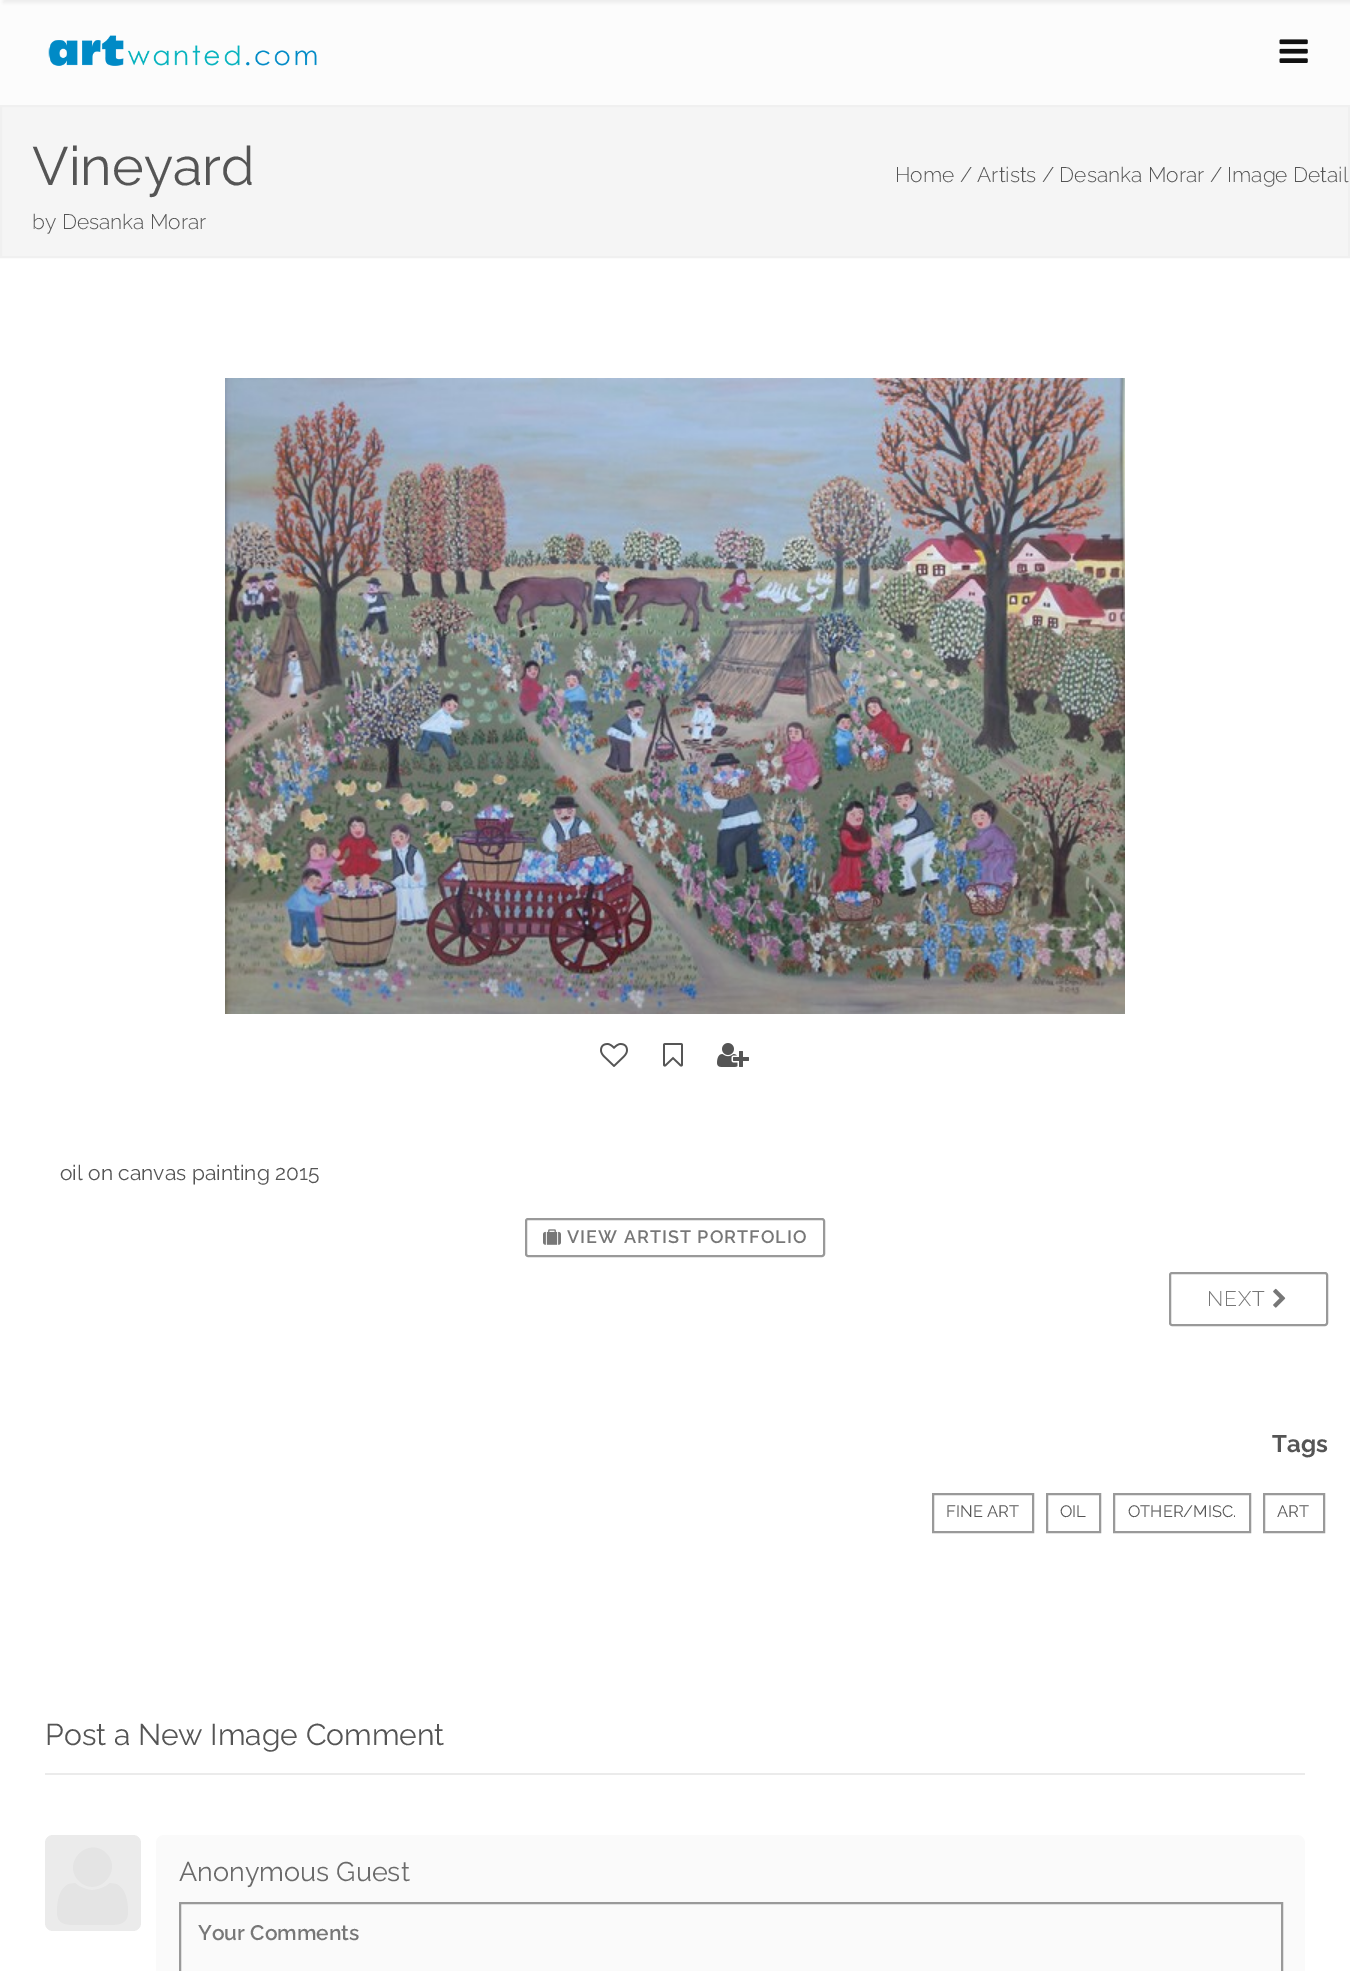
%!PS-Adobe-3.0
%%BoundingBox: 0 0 1350 1971
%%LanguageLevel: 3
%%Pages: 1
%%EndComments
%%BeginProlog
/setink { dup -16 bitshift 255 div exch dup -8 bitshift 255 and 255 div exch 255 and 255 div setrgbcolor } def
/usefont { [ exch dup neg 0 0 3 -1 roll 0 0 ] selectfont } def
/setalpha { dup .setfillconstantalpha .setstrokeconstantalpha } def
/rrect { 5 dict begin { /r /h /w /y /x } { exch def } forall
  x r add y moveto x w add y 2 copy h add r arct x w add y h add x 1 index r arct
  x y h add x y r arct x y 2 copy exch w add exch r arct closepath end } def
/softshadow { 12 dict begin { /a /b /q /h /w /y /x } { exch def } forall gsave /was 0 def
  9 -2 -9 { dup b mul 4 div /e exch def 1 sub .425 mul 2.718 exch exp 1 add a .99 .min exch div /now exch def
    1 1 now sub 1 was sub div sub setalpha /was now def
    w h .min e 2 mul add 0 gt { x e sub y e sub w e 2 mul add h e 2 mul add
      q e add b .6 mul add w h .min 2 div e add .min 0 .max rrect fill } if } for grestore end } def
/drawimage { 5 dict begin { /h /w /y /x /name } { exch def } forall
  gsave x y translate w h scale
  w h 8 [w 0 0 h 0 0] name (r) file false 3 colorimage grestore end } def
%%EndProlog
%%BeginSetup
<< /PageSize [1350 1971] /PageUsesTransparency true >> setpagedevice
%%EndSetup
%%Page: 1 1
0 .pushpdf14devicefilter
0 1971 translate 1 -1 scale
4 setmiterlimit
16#FFFFFF setink
0 0 1350 1971 rectfill
16#FCFCFC setink
0 0 1350 105 rectfill
(img1.raw) 48 35 269 31 drawimage
(img2.raw) 1279 39 29 24 drawimage
16#000000 setink
3 -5 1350 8 0 1.5 0.05 softshadow
16#F5F5F5 setink
1 106 moveto 1349 106 lineto 1349 257 lineto 1 257 lineto closepath gsave fill grestore
16#F0F0F0 setink
2 setlinewidth
stroke
/Raleway-Regular 54 usefont
16#555555 setink
32 185 moveto (Vineyard) show
/Raleway-Light 21 usefont
32 229 moveto (by Desanka Morar) show
895 182 moveto (Home / Artists / Desanka Morar / Image Detail) show
(img3.raw) 225 378 900 636 drawimage
(img4.raw) 600 1043 28 24 drawimage
(img5.raw) 663 1043 20 24 drawimage
(img6.raw) 717 1043 32 24 drawimage
/Raleway-Regular 21 usefont
60 1180 moveto (oil on canvas painting 2015) show
16#999999 setink
526 1219 298 37 2 rrect stroke
(img7.raw) 543 1229 18 16 drawimage
/Raleway-SemiBold 18 usefont
16#777777 setink
567 1243 moveto 1.05 0 (VIEW ARTIST PORTFOLIO) ashow
16#999999 setink
1170 1273 157 52 2 rrect stroke
/Raleway-Light 21 usefont
16#777777 setink
1207 1306 moveto 1.05 0 (NEXT) ashow
(img8.raw) 1273 1288 13 20 drawimage
/Raleway-Bold 24 usefont
16#555555 setink
1272 1452 moveto (Tags) show
16#999999 setink
933 1494 100 38 rectstroke
/Raleway-Regular 16.5 usefont
16#555555 setink
946 1517 moveto (FINE ART) show
16#999999 setink
1047 1494 53 38 rectstroke
16#555555 setink
1060 1517 moveto (OIL) show
16#999999 setink
1114 1494 136 38 rectstroke
16#555555 setink
1128 1517 moveto (OTHER/MISC.) show
16#999999 setink
1264 1494 60 38 rectstroke
16#555555 setink
1277 1517 moveto (ART) show
16#EBEBEB setink
45 1773 1260 2 rectfill
/Raleway-Regular 30 usefont
16#555555 setink
45 1745 moveto (Post a New Image Comment) show
16#EBEBEB setink
45 1835 96 96 8 rrect fill
16#E4E4E4 setink
128 1912 moveto 128 1925 117 1925 107 1925 curveto 78 1925 lineto 67 1925 57 1925 57 1912 curveto 57 1902 59 1888 69 1884 curveto 75 1883 lineto 79 1886 lineto 83 1888 88 1890 92 1890 curveto 97 1890 102 1888 106 1886 curveto 110 1883 lineto 116 1884 lineto 126 1888 128 1902 128 1912 curveto closepath 106 1853 moveto 124 1871 97 1899 79 1881 curveto 61 1863 88 1836 106 1853 curveto closepath fill
16#FAFAFA setink
156 1835 1149 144 8 rrect fill
/Raleway-Regular 27 usefont
16#6A6A6A setink
179 1881 moveto (Anonymous Guest) show
16#999999 setink
180 1903 1102 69 rectstroke
/Raleway-SemiBold 21 usefont
16#777777 setink
198 1940 moveto (Your Comments) show
.poppdf14devicefilter showpage
%%EOF
